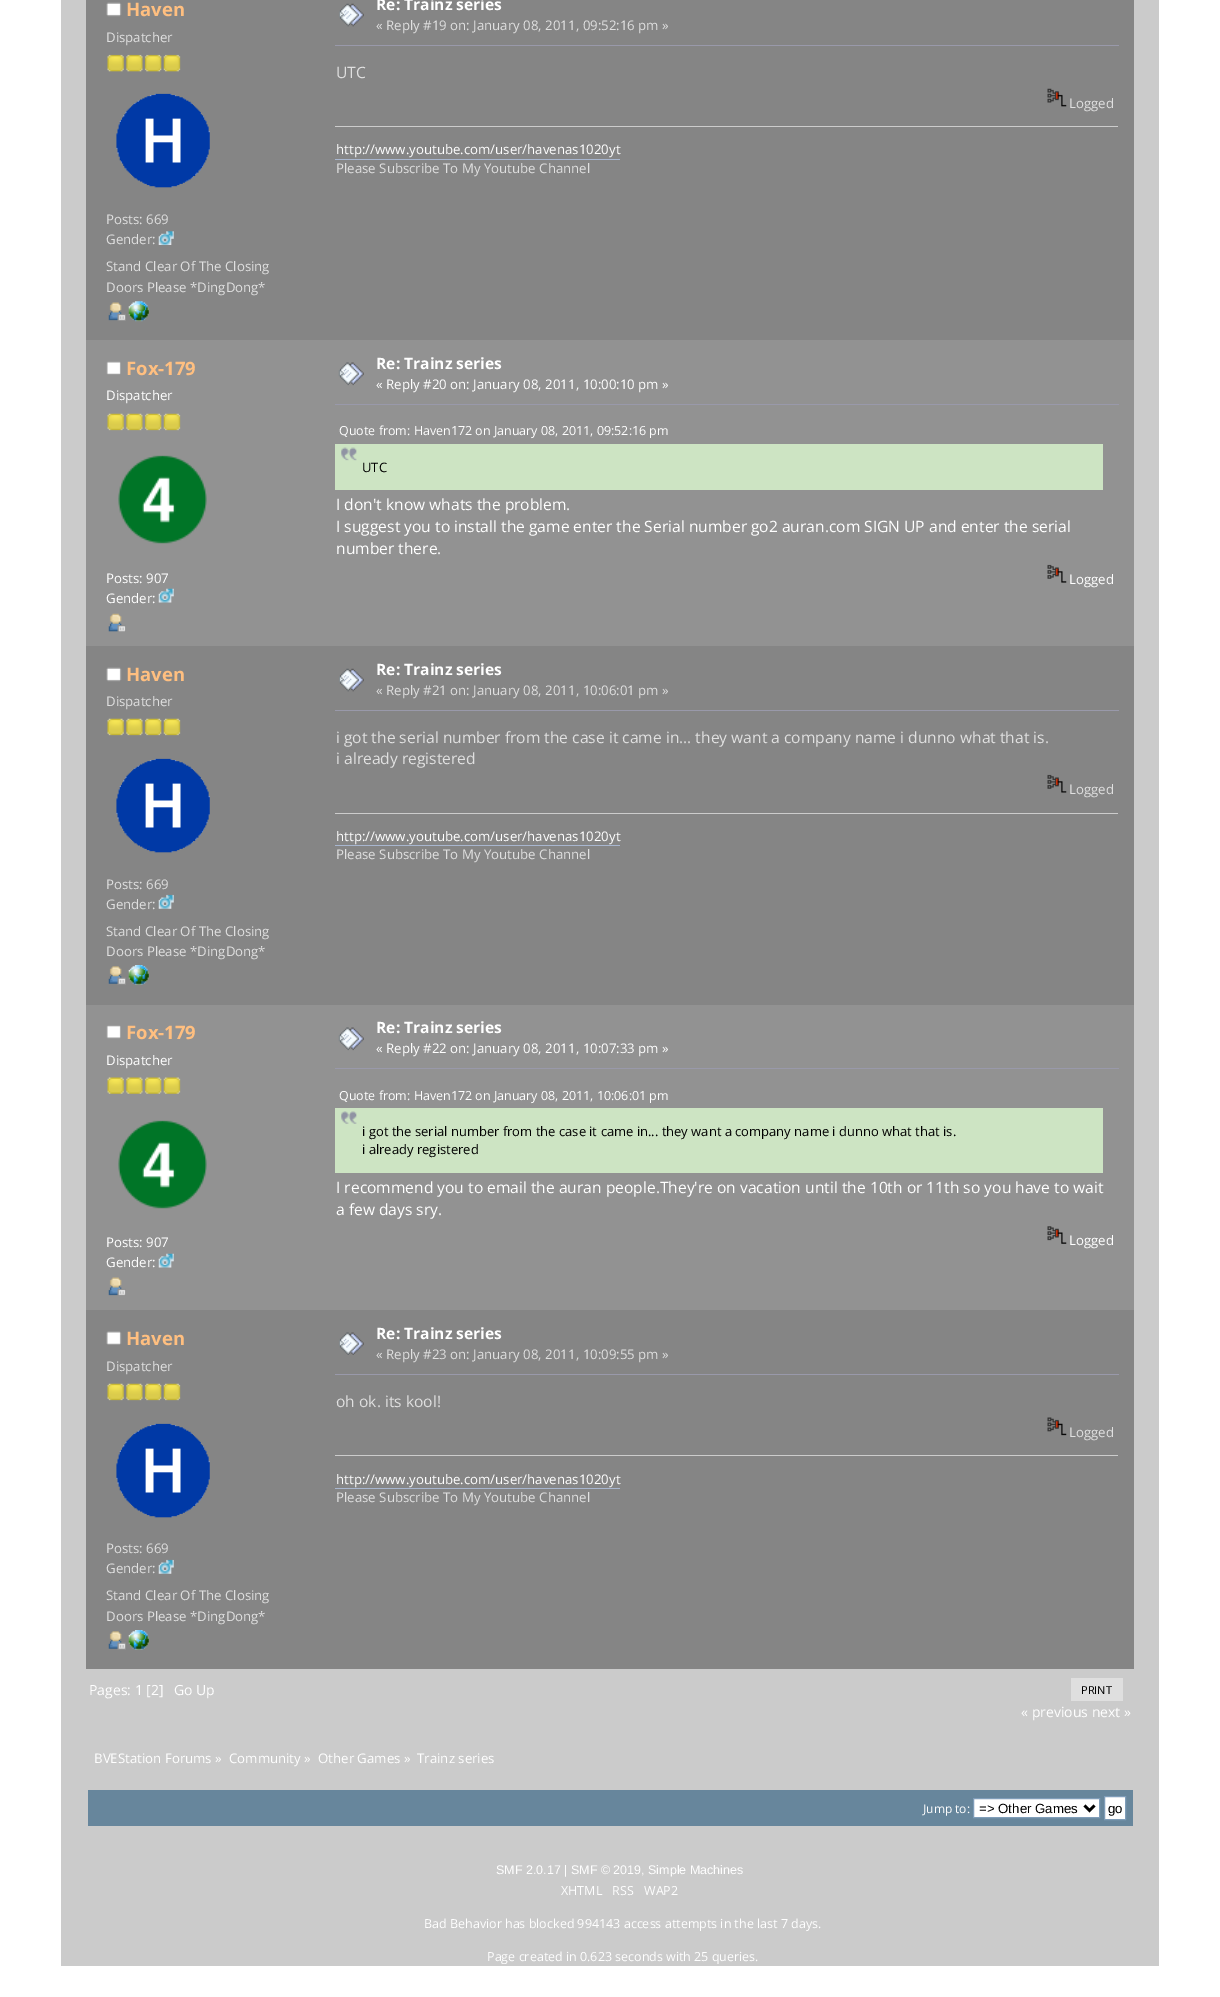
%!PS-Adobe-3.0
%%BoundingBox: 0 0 1220 1997
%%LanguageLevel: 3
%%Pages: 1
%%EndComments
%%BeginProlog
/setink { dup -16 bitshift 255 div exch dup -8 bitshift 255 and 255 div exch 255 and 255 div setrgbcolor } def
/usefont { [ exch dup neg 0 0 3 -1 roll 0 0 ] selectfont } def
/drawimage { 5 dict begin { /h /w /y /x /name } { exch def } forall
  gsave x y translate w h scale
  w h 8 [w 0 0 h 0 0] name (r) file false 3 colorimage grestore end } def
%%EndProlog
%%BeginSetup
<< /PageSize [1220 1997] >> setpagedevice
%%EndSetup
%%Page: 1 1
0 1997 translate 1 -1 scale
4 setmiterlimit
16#FFFFFF setink
0 0 1220 1997 rectfill
16#CBCBCB setink
61 0 1098 1966 rectfill
16#858585 setink
86 0 1048 340 rectfill
(img1.raw) 106 2 16 15 drawimage
/OpenSans-Bold 18.5 usefont
16#FFBF80 setink
126 16 moveto (Haven) show
/OpenSans-Regular 13.25 usefont
16#E0E0E0 setink
106 42 moveto (Dispatcher) show
(img2.raw) 107 54 17 18 drawimage
(img3.raw) 126 54 17 18 drawimage
(img4.raw) 144 54 18 18 drawimage
(img5.raw) 163 54 18 18 drawimage
(img6.raw) 116 93 94 95 drawimage
106 224 moveto (Posts: 669) show
106 244 moveto (Gender:) show
(img7.raw) 158 231 16 14 drawimage
106 271 moveto (Stand Clear Of The Closing) show
106 292 moveto (Doors Please *DingDong*) show
(img8.raw) 108 302 18 19 drawimage
(img9.raw) 128 301 21 21 drawimage
(img10.raw) 339 3 25 24 drawimage
/OpenSans-Bold 15.6 usefont
16#FFFFFF setink
376 10 moveto (Re: Trainz series) show
/OpenSans-Regular 13.25 usefont
16#E0E0E0 setink
376 30 moveto (« Reply #19 on: January 08, 2011, 09:52:16 pm ») show
16#9999AA setink
335 45 784 1 rectfill
/OpenSans-Regular 15.6 usefont
16#E0E0E0 setink
336 78 moveto (UTC) show
(img11.raw) 1047 88 20 19 drawimage
/OpenSans-Regular 13.25 usefont
1069 108 moveto (Logged) show
16#CCCCCC setink
335 126 783 1 rectfill
16#FFFFFF setink
336 154 moveto (http://www.youtube.com/user/havenas1020yt) show
16#A8B6CF setink
335 159 285 1 rectfill
16#E0E0E0 setink
336 173 moveto (Please Subscribe To My Youtube Channel) show
16#929292 setink
86 340 1048 306 rectfill
(img12.raw) 106 361 15 14 drawimage
/OpenSans-Bold 18.5 usefont
16#FFBF80 setink
126 375 moveto (Fox-179) show
/OpenSans-Regular 13.25 usefont
16#FFFFFF setink
106 400 moveto (Dispatcher) show
(img13.raw) 107 413 17 18 drawimage
(img14.raw) 126 413 17 18 drawimage
(img15.raw) 144 413 18 18 drawimage
(img16.raw) 163 413 18 18 drawimage
(img17.raw) 118 455 89 89 drawimage
106 583 moveto (Posts: 907) show
106 603 moveto (Gender:) show
(img18.raw) 158 588 16 15 drawimage
(img19.raw) 108 613 18 19 drawimage
(img20.raw) 338 362 26 24 drawimage
/OpenSans-Bold 15.6 usefont
376 369 moveto (Re: Trainz series) show
/OpenSans-Regular 13.25 usefont
376 389 moveto (« Reply #20 on: January 08, 2011, 10:00:10 pm ») show
16#9999AA setink
335 404 784 1 rectfill
/OpenSans-Regular 12.5 usefont
16#FFFFFF setink
339 435 moveto (Quote from: Haven172 on January 08, 2011, 09:52:16 pm) show
16#CDE4C3 setink
335 444 768 46 rectfill
(img21.raw) 341 447 16 14 drawimage
/OpenSans-Regular 13 usefont
16#000000 setink
362 472 moveto (UTC) show
/OpenSans-Regular 15.6 usefont
16#FFFFFF setink
[
    [(I don't know whats the problem.) 336 510]
    [(I suggest you to install the game enter the Serial number go2 auran.com SIGN UP and enter the serial) 336 532]
    [(number there.) 336 554]
] { aload pop moveto show } forall
(img22.raw) 1047 564 20 19 drawimage
/OpenSans-Regular 13.25 usefont
1069 584 moveto (Logged) show
16#858585 setink
86 646 1048 359 rectfill
(img1.raw) 106 667 16 15 drawimage
/OpenSans-Bold 18.5 usefont
16#FFBF80 setink
126 681 moveto (Haven) show
/OpenSans-Regular 13.25 usefont
16#E0E0E0 setink
106 706 moveto (Dispatcher) show
(img23.raw) 107 718 17 18 drawimage
(img24.raw) 126 718 17 18 drawimage
(img25.raw) 144 718 18 18 drawimage
(img26.raw) 163 718 18 18 drawimage
(img6.raw) 116 758 94 95 drawimage
106 889 moveto (Posts: 669) show
106 909 moveto (Gender:) show
(img27.raw) 158 894 16 15 drawimage
106 936 moveto (Stand Clear Of The Closing) show
106 956 moveto (Doors Please *DingDong*) show
(img28.raw) 108 966 18 19 drawimage
(img29.raw) 128 965 21 20 drawimage
(img10.raw) 339 668 25 24 drawimage
/OpenSans-Bold 15.6 usefont
16#FFFFFF setink
376 675 moveto (Re: Trainz series) show
/OpenSans-Regular 13.25 usefont
16#E0E0E0 setink
376 695 moveto (« Reply #21 on: January 08, 2011, 10:06:01 pm ») show
16#9999AA setink
335 710 784 1 rectfill
/OpenSans-Regular 15.6 usefont
16#E0E0E0 setink
336 743 moveto (i got the serial number from the case it came in... they want a company name i dunno what that is.) show
336 764 moveto (i already registered) show
(img30.raw) 1047 774 20 19 drawimage
/OpenSans-Regular 13.25 usefont
1069 794 moveto (Logged) show
16#CCCCCC setink
335 813 783 1 rectfill
16#FFFFFF setink
336 841 moveto (http://www.youtube.com/user/havenas1020yt) show
16#A8B6CF setink
335 845 285 1 rectfill
16#E0E0E0 setink
336 859 moveto (Please Subscribe To My Youtube Channel) show
16#929292 setink
86 1005 1048 305 rectfill
(img31.raw) 106 1025 15 14 drawimage
/OpenSans-Bold 18.5 usefont
16#FFBF80 setink
126 1039 moveto (Fox-179) show
/OpenSans-Regular 13.25 usefont
16#FFFFFF setink
106 1065 moveto (Dispatcher) show
(img32.raw) 107 1077 17 17 drawimage
(img33.raw) 126 1077 17 17 drawimage
(img34.raw) 144 1077 18 17 drawimage
(img35.raw) 163 1077 18 17 drawimage
(img17.raw) 118 1120 89 89 drawimage
106 1247 moveto (Posts: 907) show
106 1267 moveto (Gender:) show
(img36.raw) 158 1253 16 15 drawimage
(img37.raw) 108 1277 18 19 drawimage
(img20.raw) 338 1027 26 24 drawimage
/OpenSans-Bold 15.6 usefont
376 1033 moveto (Re: Trainz series) show
/OpenSans-Regular 13.25 usefont
376 1053 moveto (« Reply #22 on: January 08, 2011, 10:07:33 pm ») show
16#9999AA setink
335 1068 784 1 rectfill
/OpenSans-Regular 12.5 usefont
16#FFFFFF setink
339 1100 moveto (Quote from: Haven172 on January 08, 2011, 10:06:01 pm) show
16#CDE4C3 setink
335 1108 768 65 rectfill
(img38.raw) 341 1111 16 13 drawimage
/OpenSans-Regular 13 usefont
16#000000 setink
362 1136 moveto (i got the serial number from the case it came in... they want a company name i dunno what that is.) show
362 1154 moveto (i already registered) show
/OpenSans-Regular 15.6 usefont
16#FFFFFF setink
336 1193 moveto (I recommend you to email the auran people.They're on vacation until the 10th or 11th so you have to wait) show
336 1215 moveto (a few days sry.) show
(img39.raw) 1047 1226 20 18 drawimage
/OpenSans-Regular 13.25 usefont
1069 1245 moveto (Logged) show
16#858585 setink
86 1310 1048 359 rectfill
(img40.raw) 106 1331 16 14 drawimage
/OpenSans-Bold 18.5 usefont
16#FFBF80 setink
126 1345 moveto (Haven) show
/OpenSans-Regular 13.25 usefont
16#E0E0E0 setink
106 1371 moveto (Dispatcher) show
(img23.raw) 107 1383 17 18 drawimage
(img24.raw) 126 1383 17 18 drawimage
(img25.raw) 144 1383 18 18 drawimage
(img26.raw) 163 1383 18 18 drawimage
(img6.raw) 116 1423 94 95 drawimage
106 1553 moveto (Posts: 669) show
106 1573 moveto (Gender:) show
(img27.raw) 158 1559 16 15 drawimage
106 1600 moveto (Stand Clear Of The Closing) show
106 1621 moveto (Doors Please *DingDong*) show
(img28.raw) 108 1631 18 19 drawimage
(img29.raw) 128 1630 21 20 drawimage
(img41.raw) 339 1332 25 23 drawimage
/OpenSans-Bold 15.6 usefont
16#FFFFFF setink
376 1339 moveto (Re: Trainz series) show
/OpenSans-Regular 13.25 usefont
16#E0E0E0 setink
376 1359 moveto (« Reply #23 on: January 08, 2011, 10:09:55 pm ») show
16#9999AA setink
335 1374 784 1 rectfill
/OpenSans-Regular 15.6 usefont
16#E0E0E0 setink
336 1407 moveto (oh ok. its kool!) show
(img42.raw) 1047 1417 20 19 drawimage
/OpenSans-Regular 13.25 usefont
1069 1437 moveto (Logged) show
16#CCCCCC setink
335 1455 783 1 rectfill
16#FFFFFF setink
336 1484 moveto (http://www.youtube.com/user/havenas1020yt) show
16#A8B6CF setink
335 1488 285 1 rectfill
16#E0E0E0 setink
336 1502 moveto (Please Subscribe To My Youtube Channel) show
/OpenSans-Regular 14 usefont
16#FFFFFF setink
89 1695 moveto (Pages: 1 [2]) show
174 1695 moveto (Go Up) show
16#DFDFDF setink
1071 1678 52 23 rectfill
/OpenSans-Regular 11 usefont
16#000000 setink
1081 1694 moveto (PRINT) show
/OpenSans-Regular 14 usefont
16#FFFFFF setink
1021 1717 moveto (« previous next ») show
/OpenSans-Regular 13.25 usefont
[
    [(BVEStation Forums ») 94 1763]
    [(Community ») 229 1763]
    [(Other Games ») 318 1763]
    [(Trainz series) 417 1763]
] { aload pop moveto show } forall
16#67869C setink
88 1790 1045 36 rectfill
/OpenSans-Regular 12 usefont
16#FFFFFF setink
923 1813 moveto (Jump to:) show
973.5 1798.5 moveto 1099.5 1798.5 lineto 1099.5 1817.5 lineto 973.5 1817.5 lineto closepath gsave fill grestore
16#7F9DB9 setink
stroke
16#000000 setink
2.5 setlinewidth
1084.5 1805.5 moveto 1089.5 1810.5 lineto 1094.5 1805.5 lineto stroke
/LiberationSans-Regular 13.25 usefont
979 1813 moveto (=> Other Games) show
16#FFFFFF setink
1104.5 1796.5 moveto 1125.5 1796.5 lineto 1125.5 1819.5 lineto 1104.5 1819.5 lineto closepath gsave fill grestore
16#7F9DB9 setink
1 setlinewidth
stroke
16#000000 setink
1108 1813 moveto (go) show
/LiberationSans-Regular 12.5 usefont
16#FFFFFF setink
496 1874 moveto (SMF 2.0.17 | SMF © 2019, Simple Machines) show
/OpenSans-Regular 12.5 usefont
[
    [(XHTML) 561 1895]
    [(RSS) 612 1895]
    [(WAP2) 644 1895]
    [(Bad Behavior has blocked 994143 access attempts in the last 7 days.) 424 1928]
    [(Page created in 0.623 seconds with 25 queries.) 487 1961]
] { aload pop moveto show } forall
showpage
%%EOF
